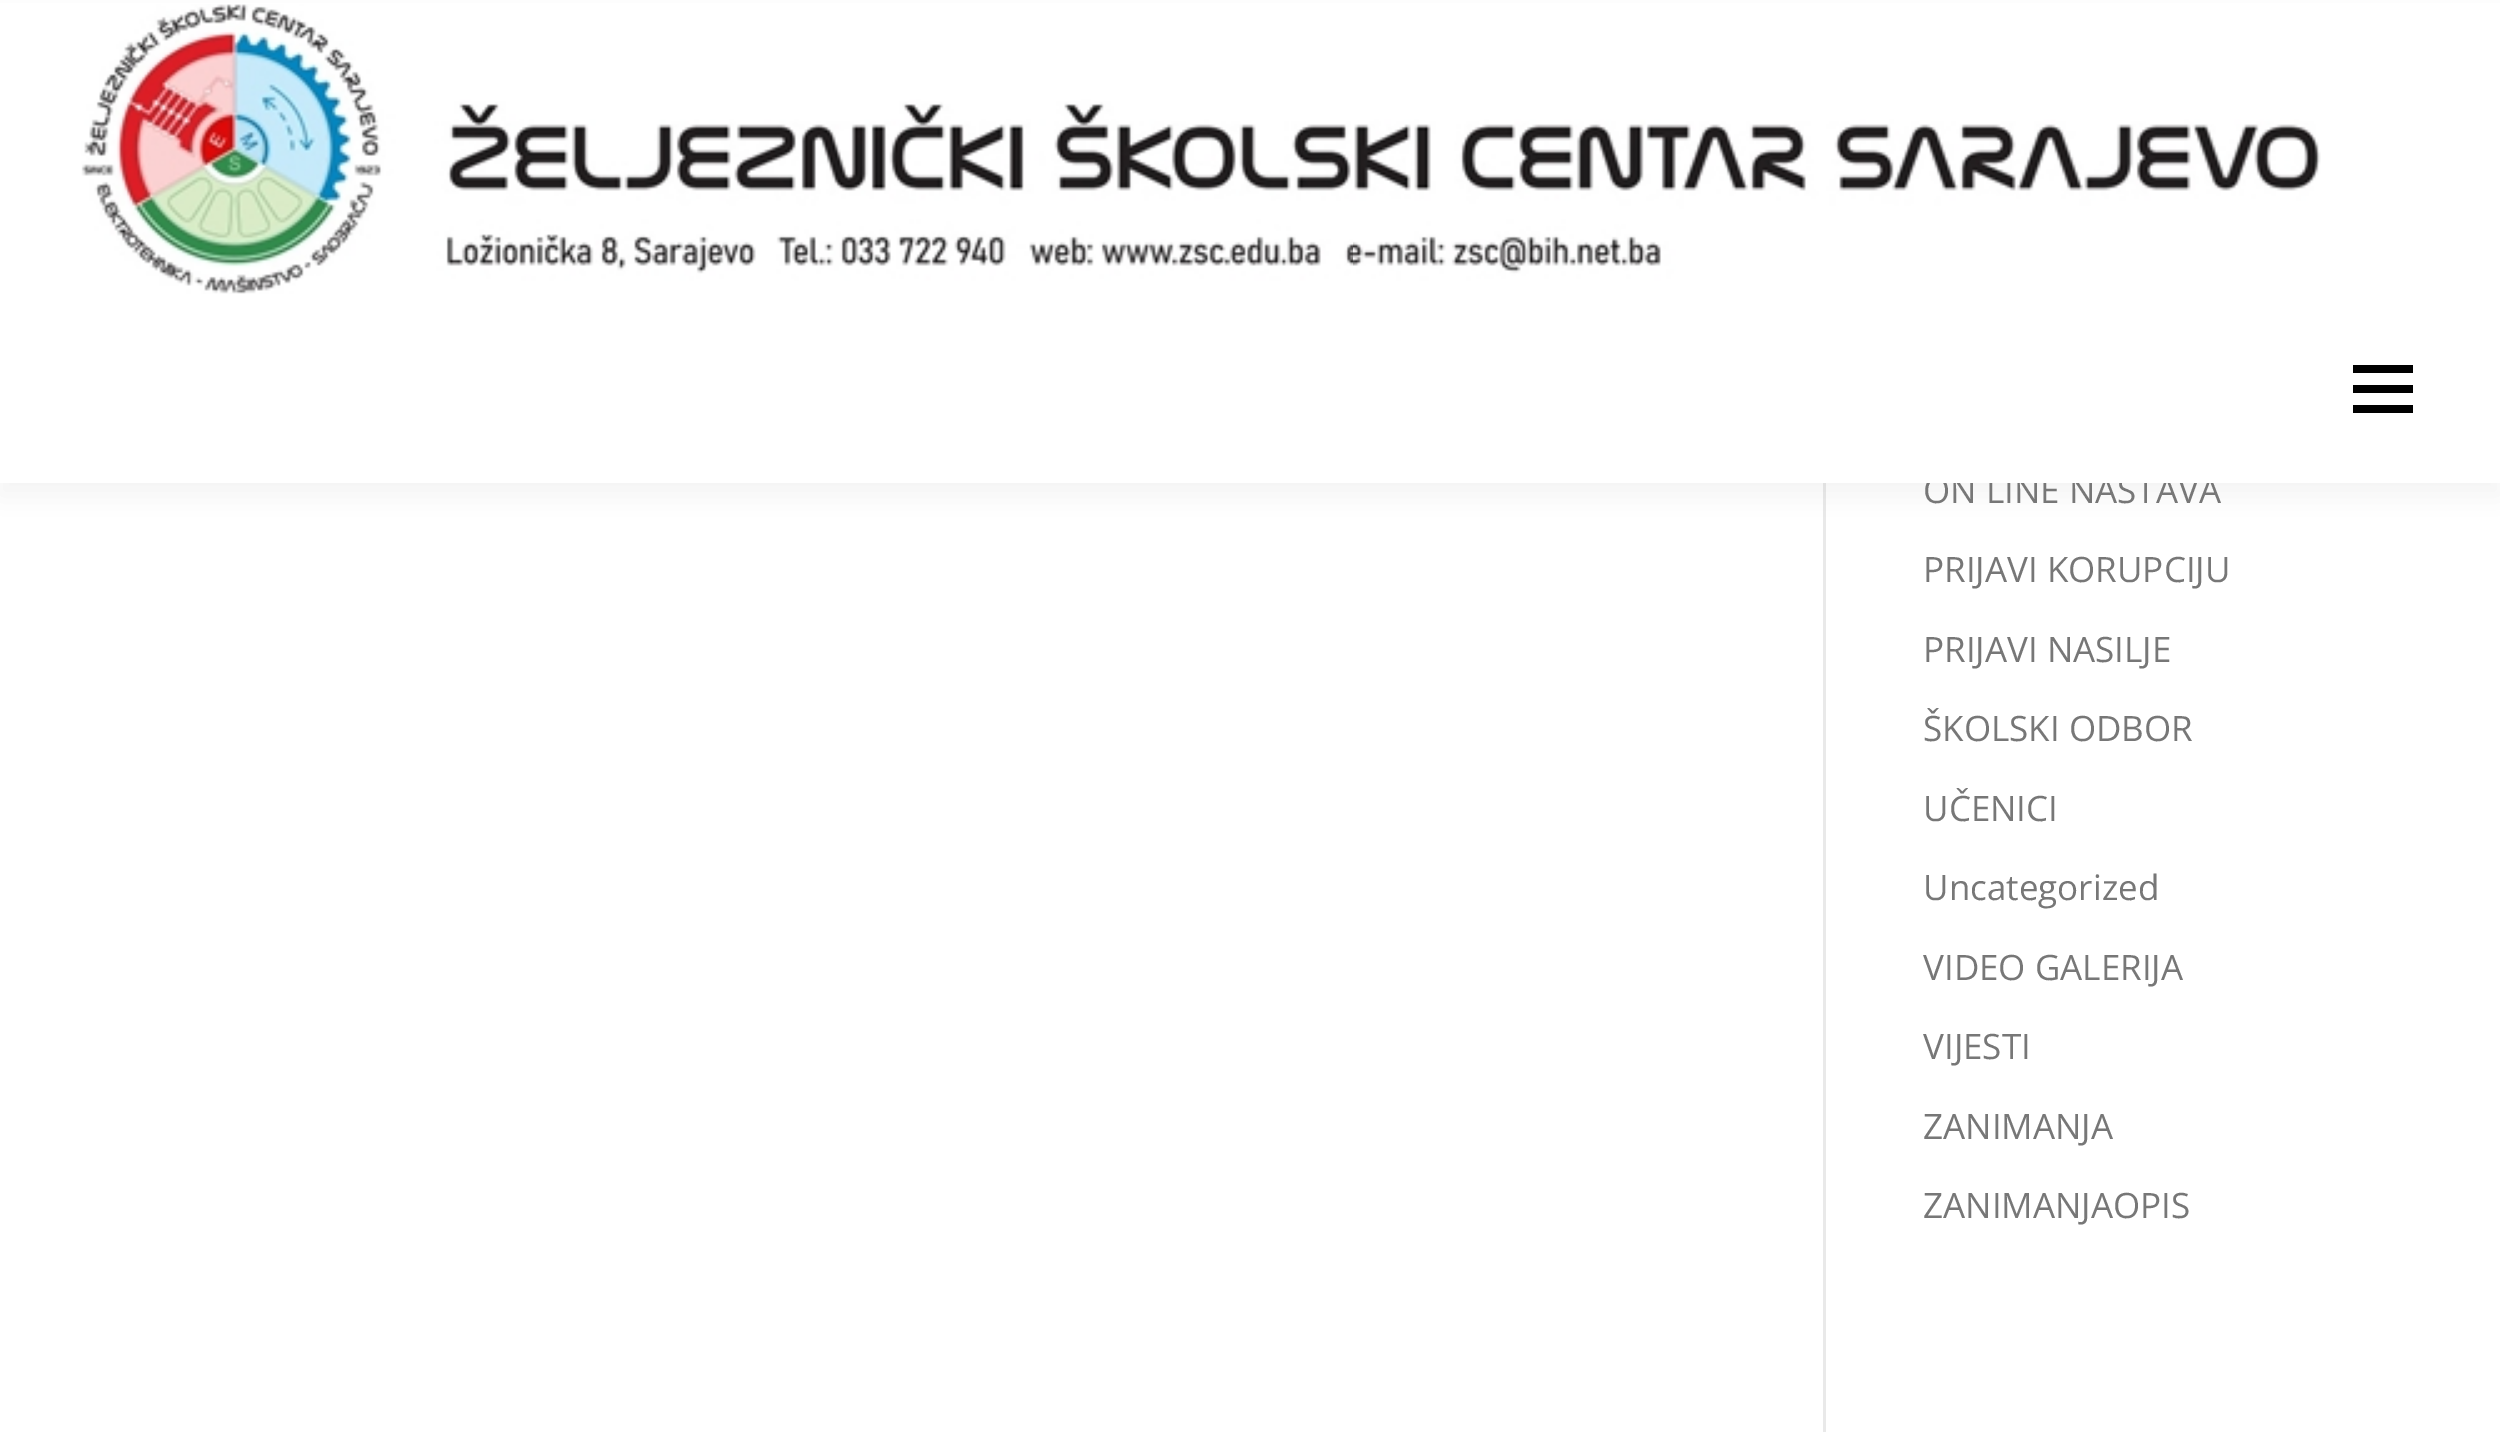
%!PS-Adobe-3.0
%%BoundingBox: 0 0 2500 1432
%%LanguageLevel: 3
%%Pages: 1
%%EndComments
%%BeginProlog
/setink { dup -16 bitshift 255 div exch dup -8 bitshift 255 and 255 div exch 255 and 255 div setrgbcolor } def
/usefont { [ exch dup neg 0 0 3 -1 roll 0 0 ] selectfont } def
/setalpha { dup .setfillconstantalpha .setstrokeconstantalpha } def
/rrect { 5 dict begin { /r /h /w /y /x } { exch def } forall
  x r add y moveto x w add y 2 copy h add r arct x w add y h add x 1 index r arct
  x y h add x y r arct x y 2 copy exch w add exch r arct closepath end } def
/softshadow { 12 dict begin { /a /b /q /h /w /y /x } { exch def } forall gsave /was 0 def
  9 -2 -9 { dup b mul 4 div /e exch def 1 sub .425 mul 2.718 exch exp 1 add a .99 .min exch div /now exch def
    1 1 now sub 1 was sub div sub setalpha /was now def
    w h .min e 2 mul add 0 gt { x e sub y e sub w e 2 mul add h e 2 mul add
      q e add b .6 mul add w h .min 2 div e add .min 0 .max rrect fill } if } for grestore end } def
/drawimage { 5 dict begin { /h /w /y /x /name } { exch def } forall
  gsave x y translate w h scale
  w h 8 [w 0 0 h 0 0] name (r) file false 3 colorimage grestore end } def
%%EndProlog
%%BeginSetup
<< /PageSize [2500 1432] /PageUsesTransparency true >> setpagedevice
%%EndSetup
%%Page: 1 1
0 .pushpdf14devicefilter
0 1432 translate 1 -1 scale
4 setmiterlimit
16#FFFFFF setink
0 0 2500 1432 rectfill
16#E9E9E9 setink
1823 483 3 949 rectfill
16#323232 setink
0 13 2500 482 0 12.5 0.06 softshadow
/OpenSans-Regular 35 usefont
16#777777 setink
1923 503 moveto (ON LINE NASTAVA) show
16#FFFFFF setink
0 3 2500 480 rectfill
(img1.raw) 81 4 2240 290 drawimage
[
    [2353 385 60 8 16#000000]
    [2353 365 60 8 16#000000]
    [2353 405 60 8 16#000000]
] { aload pop setink rectfill } forall
16#777777 setink
[
    [(PRIJAVI KORUPCIJU) 1923 582]
    [(PRIJAVI NASILJE) 1923 662]
    [(ŠKOLSKI ODBOR) 1923 741]
    [(UČENICI) 1923 821]
    [(Uncategorized) 1923 900]
    [(VIDEO GALERIJA) 1923 980]
    [(VIJESTI) 1923 1059]
    [(ZANIMANJA) 1923 1139]
    [(ZANIMANJAOPIS) 1923 1218]
] { aload pop moveto show } forall
.poppdf14devicefilter showpage
%%EOF
